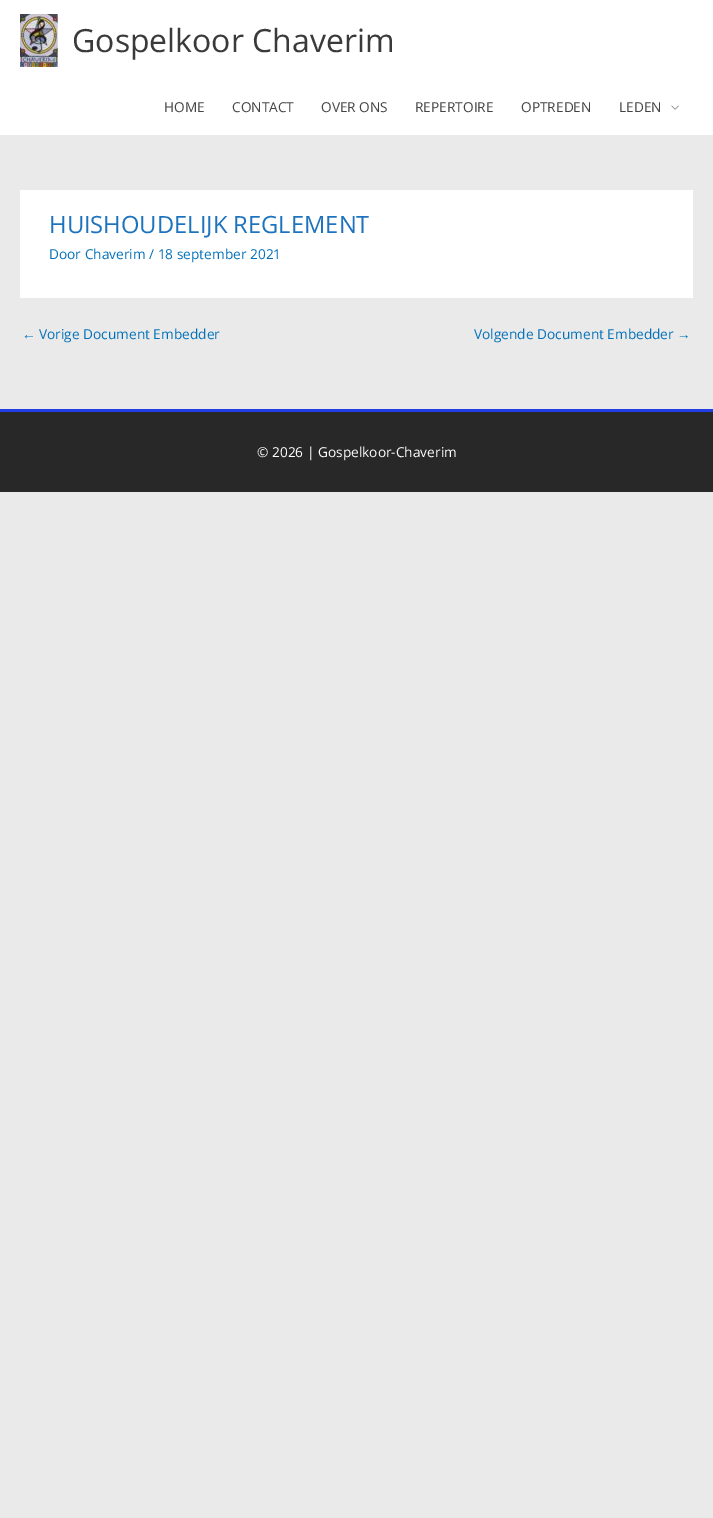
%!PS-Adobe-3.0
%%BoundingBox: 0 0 713 1518
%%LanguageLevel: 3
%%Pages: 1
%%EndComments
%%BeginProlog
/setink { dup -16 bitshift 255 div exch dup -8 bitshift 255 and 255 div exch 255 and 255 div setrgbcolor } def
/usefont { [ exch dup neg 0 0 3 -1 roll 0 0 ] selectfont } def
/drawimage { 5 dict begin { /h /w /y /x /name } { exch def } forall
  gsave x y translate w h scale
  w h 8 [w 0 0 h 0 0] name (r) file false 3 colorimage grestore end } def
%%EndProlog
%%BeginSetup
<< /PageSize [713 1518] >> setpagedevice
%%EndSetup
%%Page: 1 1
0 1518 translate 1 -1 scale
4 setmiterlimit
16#EAEAEA setink
0 0 713 1518 rectfill
16#FFFFFF setink
0 0 713 135 rectfill
(img1.raw) 20 14 38 53 drawimage
/OpenSans-Regular 32 usefont
16#3A3A3A setink
72 52 moveto (Gospelkoor Chaverim) show
/OpenSans-Regular 13.7 usefont
16#444444 setink
[
    [(HOME) 164 112]
    [(CONTACT) 232 112]
    [(OVER ONS) 321 112]
    [(REPERTOIRE) 415 112]
    [(OPTREDEN) 521 112]
    [(LEDEN) 619 112]
] { aload pop moveto show } forall
(img2.raw) 671 105 8 5 drawimage
16#FFFFFF setink
20 190 673 108 rectfill
/OpenSans-Regular 23.75 usefont
16#1E73BE setink
49 233 moveto (HUISHOUDELIJK REGLEMENT) show
/OpenSans-Regular 13.7 usefont
16#0170B9 setink
49 259 moveto (Door Chaverim / 18 september 2021) show
/LiberationSans-Regular 13.7 usefont
22 339 moveto (←) show
/OpenSans-Regular 13.7 usefont
39 339 moveto (Vorige Document Embedder) show
474 339 moveto (Volgende Document Embedder) show
/LiberationSans-Regular 13.7 usefont
677 339 moveto (→) show
16#243EE5 setink
0 409 713 3 rectfill
16#282828 setink
0 412 713 80 rectfill
/OpenSans-Regular 13.7 usefont
16#FFFFFF setink
257 457 moveto (© 2026 | Gospelkoor-Chaverim) show
showpage
%%EOF
